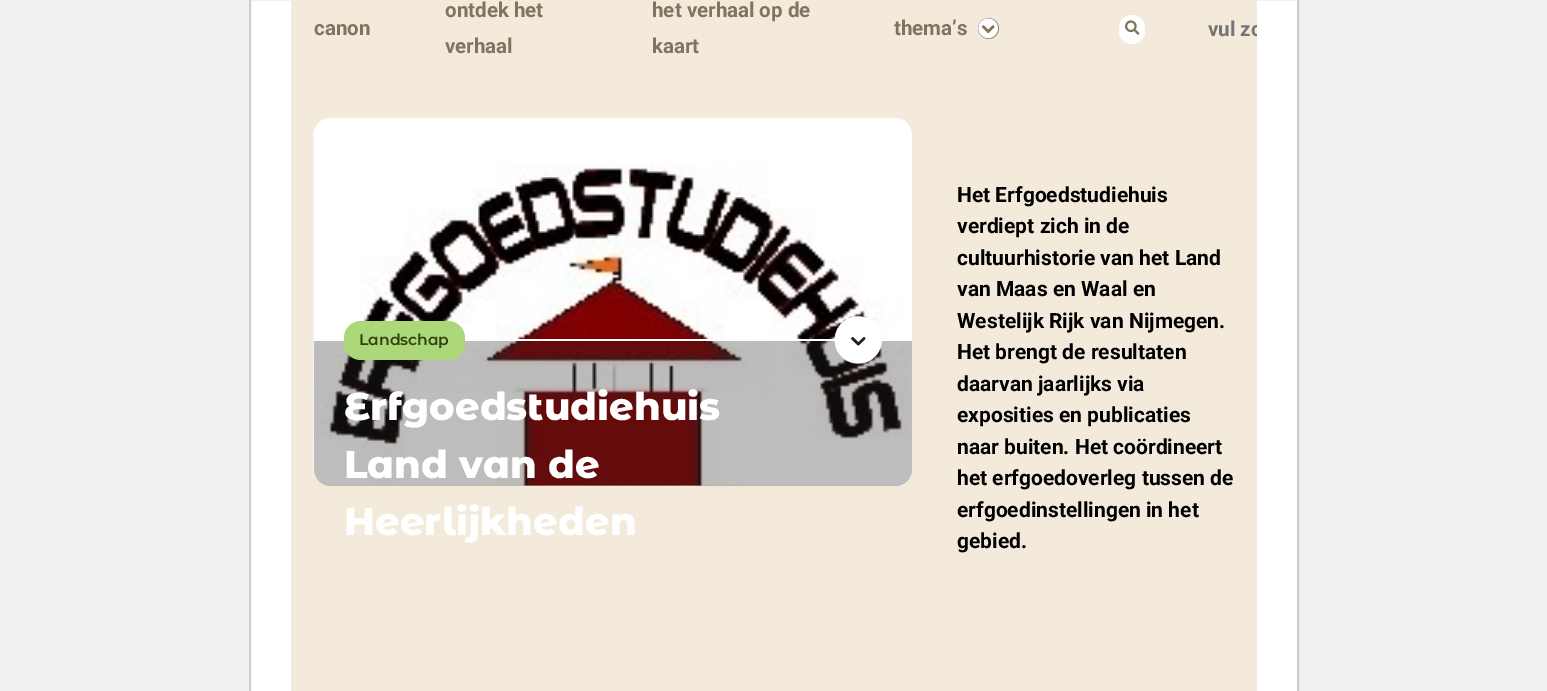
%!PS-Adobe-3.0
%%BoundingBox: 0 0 1547 691
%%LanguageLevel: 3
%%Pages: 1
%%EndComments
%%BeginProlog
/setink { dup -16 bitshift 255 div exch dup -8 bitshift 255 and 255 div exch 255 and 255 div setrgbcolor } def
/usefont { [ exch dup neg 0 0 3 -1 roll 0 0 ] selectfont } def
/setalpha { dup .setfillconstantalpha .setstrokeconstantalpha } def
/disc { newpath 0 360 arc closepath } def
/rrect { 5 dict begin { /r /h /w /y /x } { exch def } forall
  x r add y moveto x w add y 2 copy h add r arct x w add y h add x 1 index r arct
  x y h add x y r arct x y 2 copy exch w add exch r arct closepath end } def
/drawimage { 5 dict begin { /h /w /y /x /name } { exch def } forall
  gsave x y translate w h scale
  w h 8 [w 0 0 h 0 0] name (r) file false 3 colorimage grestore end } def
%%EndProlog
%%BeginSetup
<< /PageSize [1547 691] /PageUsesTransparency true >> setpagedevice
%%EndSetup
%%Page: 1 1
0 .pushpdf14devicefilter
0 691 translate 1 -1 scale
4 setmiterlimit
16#F1F1F1 setink
0 0 1547 691 rectfill
16#FFFFFF setink
250 -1 moveto 1298 -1 lineto 1298 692 lineto 250 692 lineto closepath gsave fill grestore
16#CCD0D4 setink
2 setlinewidth
stroke
16#F3EADB setink
291 0 966 691 rectfill
/Roboto-Bold 20.5 usefont
16#81745E setink
[
    [(canon) 314 35]
    [(ontdek het) 445 17]
    [(verhaal) 445 53]
    [(het verhaal op de) 652 17]
    [(kaart) 652 53]
] { aload pop moveto show } forall
988.5 28.5 10.5 disc fill
894 35 moveto (thema’s) show
(img1.raw) 978 18 21 21 drawimage
16#FFFFFF setink
1119 15 26 29 13 rrect fill
(img2.raw) 1125 20 15 15 drawimage
gsave
1157 17 100 24 rectclip
16#757575 setink
1208 36 moveto (vul zo) show
grestore
(img3.raw) 313 118 599 368 drawimage
0.3 setalpha
16#242424 setink
314 339 moveto 912 339 lineto 912 469 lineto 912 478.5 904.5 486 895 486 curveto 331 486 lineto 321.5 486 314 478.5 314 469 curveto closepath fill
1 setalpha
16#FFFFFF setink
314 339 598 2 rectfill
16#ACD879 setink
344 321 121 39 17 rrect fill
/MontserratAlternates-SemiBold 15.5 usefont
16#2C4311 setink
359 345 moveto (Landschap) show
(img4.raw) 834 316 48 48 drawimage
/MontserratAlternates-ExtraBold 38.5 usefont
16#FFFFFF setink
[
    [(Erfgoedstudiehuis) 344 420]
    [(Land van de) 344 478]
    [(Heerlijkheden) 344 535]
] { aload pop moveto show } forall
/Roboto-Bold 21 usefont
16#000000 setink
[
    [(Het Erfgoedstudiehuis) 957 202]
    [(verdiept zich in de) 957 233]
    [(cultuurhistorie van het Land) 957 265]
    [(van Maas en Waal en) 957 296]
    [(Westelijk Rijk van Nijmegen.) 957 328]
    [(Het brengt de resultaten) 957 359]
    [(daarvan jaarlijks via) 957 391]
    [(exposities en publicaties) 957 422]
    [(naar buiten. Het coördineert) 957 454]
    [(het erfgoedoverleg tussen de) 957 485]
    [(erfgoedinstellingen in het) 957 517]
    [(gebied.) 957 548]
] { aload pop moveto show } forall
.poppdf14devicefilter showpage
%%EOF
